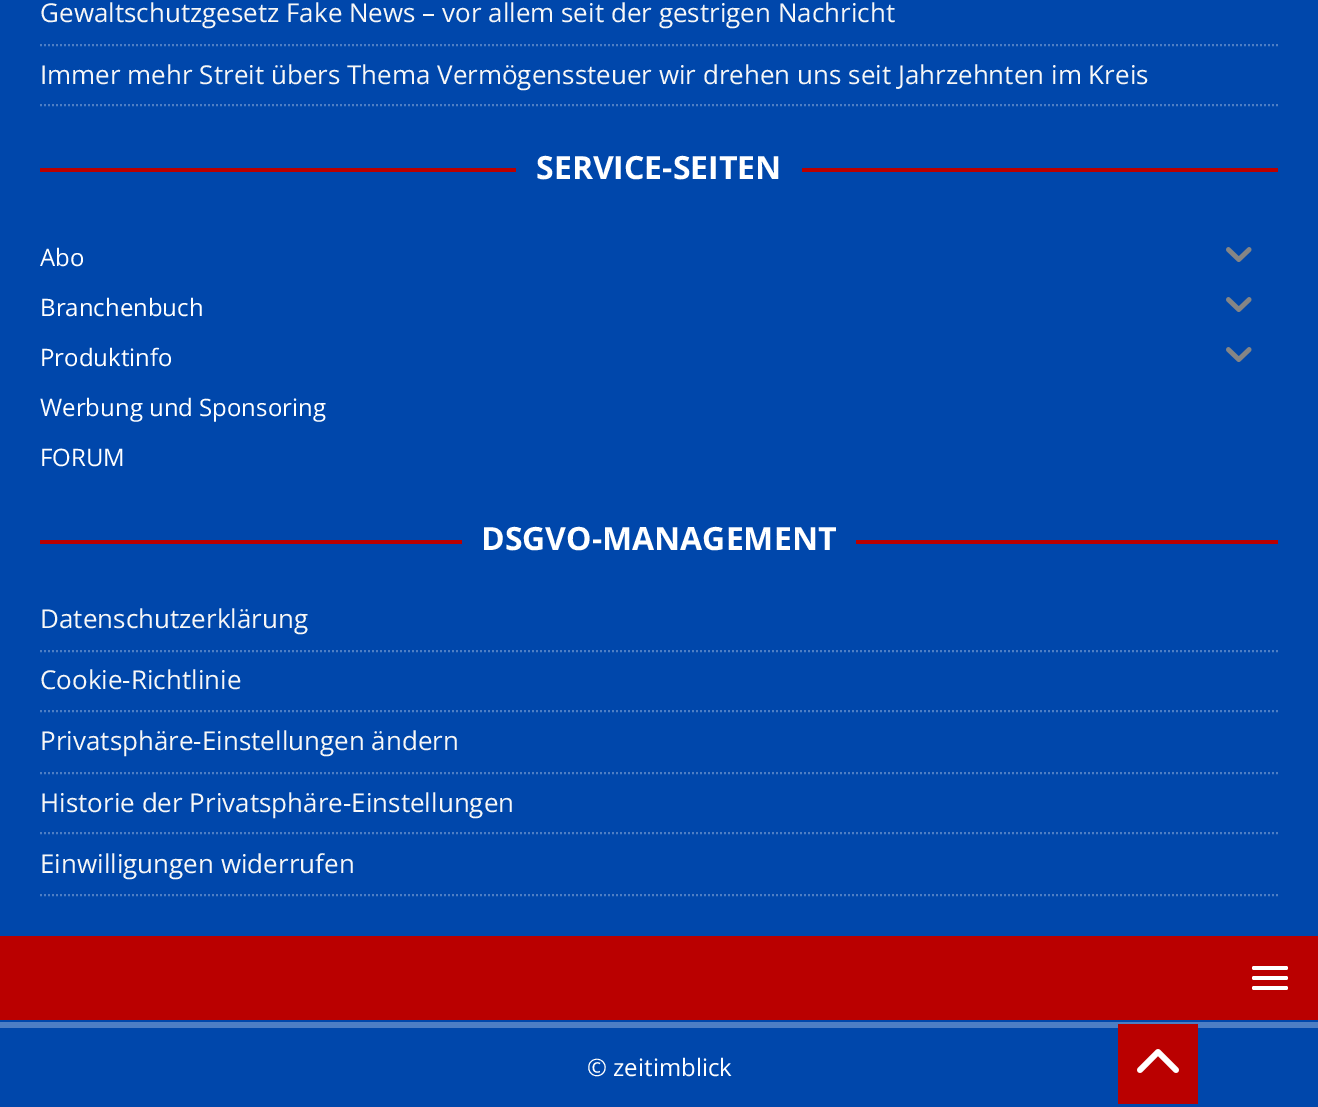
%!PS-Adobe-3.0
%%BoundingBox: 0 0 1318 1107
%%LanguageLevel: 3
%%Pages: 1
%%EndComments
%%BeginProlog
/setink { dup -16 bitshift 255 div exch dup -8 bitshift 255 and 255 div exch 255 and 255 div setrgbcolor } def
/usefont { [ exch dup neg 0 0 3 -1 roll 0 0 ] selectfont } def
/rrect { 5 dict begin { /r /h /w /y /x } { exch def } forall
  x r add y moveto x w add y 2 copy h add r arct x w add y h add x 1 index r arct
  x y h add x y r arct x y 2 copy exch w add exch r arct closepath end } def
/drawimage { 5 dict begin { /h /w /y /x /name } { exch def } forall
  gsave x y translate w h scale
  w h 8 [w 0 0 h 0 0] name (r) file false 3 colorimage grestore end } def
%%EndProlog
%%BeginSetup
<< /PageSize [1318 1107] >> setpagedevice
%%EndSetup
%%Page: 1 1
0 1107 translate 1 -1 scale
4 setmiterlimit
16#0047AB setink
0 0 1318 1107 rectfill
16#4D7EC4 setink
2 setlinewidth
[2 2] 0 setdash
40 45 moveto 1278 45 lineto stroke
/OpenSans-Regular 26 usefont
16#F7F7F7 setink
40 22 moveto (Gewaltschutzgesetz Fake News – vor allem seit der gestrigen Nachricht) show
16#4D7EC4 setink
40 105 moveto 1278 105 lineto stroke
16#F7F7F7 setink
40 84 moveto (Immer mehr Streit übers Thema Vermögenssteuer wir drehen uns seit Jahrzehnten im Kreis) show
16#BA0000 setink
40 168 1238 4 rectfill
16#0047AB setink
516 168 286 4 rectfill
/OpenSans-Bold 32 usefont
16#FFFFFF setink
536 179 moveto (SERVICE-SEITEN) show
/OpenSans-Regular 24 usefont
40 266 moveto (Abo) show
(img1.raw) 1226 247 26 15 drawimage
40 316 moveto (Branchenbuch) show
(img1.raw) 1226 297 26 15 drawimage
40 366 moveto (Produktinfo) show
(img1.raw) 1226 347 26 15 drawimage
40 416 moveto (Werbung und Sponsoring) show
40 466 moveto (FORUM) show
16#BA0000 setink
40 540 1238 4 rectfill
16#0047AB setink
462 540 394 4 rectfill
/OpenSans-Bold 32 usefont
16#FFFFFF setink
481 550 moveto (DSGVO-MANAGEMENT) show
16#4D7EC4 setink
40 651 moveto 1278 651 lineto stroke
/OpenSans-Regular 26 usefont
16#F7F7F7 setink
40 628 moveto (Datenschutzerklärung) show
16#4D7EC4 setink
40 711 moveto 1278 711 lineto stroke
16#F7F7F7 setink
40 689 moveto (Cookie-Richtlinie) show
16#4D7EC4 setink
40 773 moveto 1278 773 lineto stroke
16#F7F7F7 setink
40 750 moveto (Privatsphäre-Einstellungen ändern) show
16#4D7EC4 setink
40 833 moveto 1278 833 lineto stroke
16#F7F7F7 setink
40 812 moveto (Historie der Privatsphäre-Einstellungen) show
16#4D7EC4 setink
40 895 moveto 1278 895 lineto stroke
16#F7F7F7 setink
40 873 moveto (Einwilligungen widerrufen) show
16#BA0000 setink
0 936 1318 84 rectfill
16#FFFFFF setink
1252 966 36 4 2 rrect fill
1252 976 36 4 2 rrect fill
1252 986 36 4 2 rrect fill
16#4D7EC4 setink
0 1022 1318 6 rectfill
/OpenSans-Regular 24 usefont
16#FFFFFF setink
587 1076 moveto (© zeitimblick) show
16#BA0000 setink
1118 1024 80 80 rectfill
(img2.raw) 1137 1049 42 24 drawimage
showpage
%%EOF
